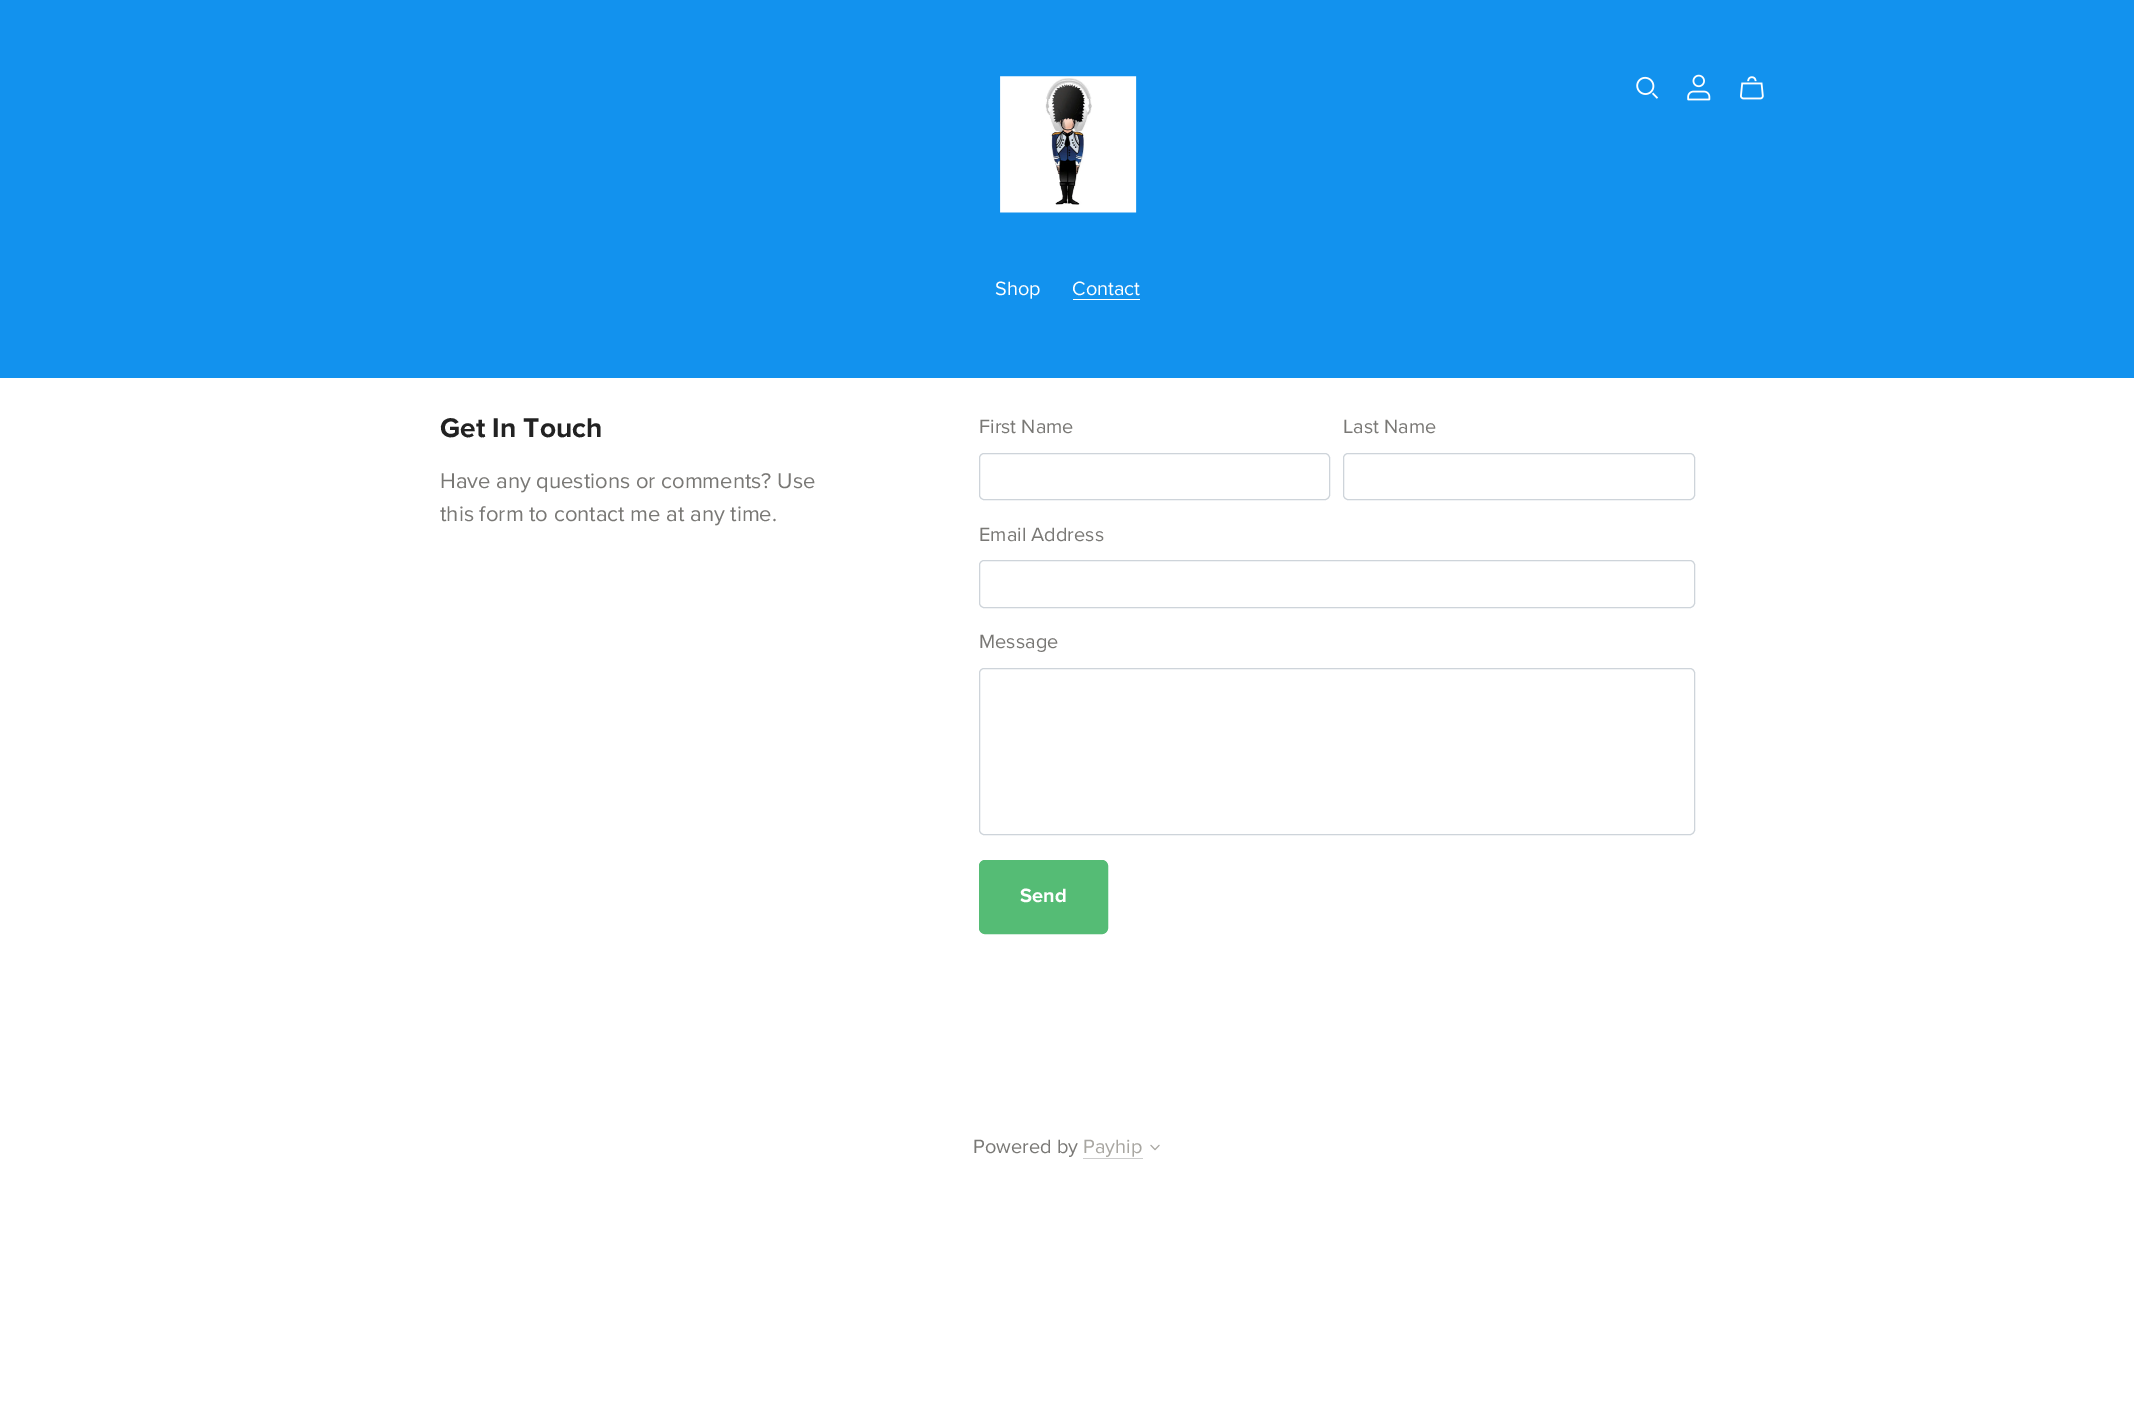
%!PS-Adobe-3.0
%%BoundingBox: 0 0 2134 1425
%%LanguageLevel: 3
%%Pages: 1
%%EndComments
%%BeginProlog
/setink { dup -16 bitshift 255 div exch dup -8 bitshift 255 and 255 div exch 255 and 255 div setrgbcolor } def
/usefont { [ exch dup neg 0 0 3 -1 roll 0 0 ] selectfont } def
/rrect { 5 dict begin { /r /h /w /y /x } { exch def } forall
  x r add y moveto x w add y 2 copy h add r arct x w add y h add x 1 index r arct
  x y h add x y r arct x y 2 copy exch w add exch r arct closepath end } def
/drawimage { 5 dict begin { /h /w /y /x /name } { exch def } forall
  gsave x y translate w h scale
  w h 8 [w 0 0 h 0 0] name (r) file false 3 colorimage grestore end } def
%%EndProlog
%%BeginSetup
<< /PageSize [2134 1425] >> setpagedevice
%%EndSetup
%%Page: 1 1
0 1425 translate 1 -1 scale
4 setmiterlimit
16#FFFFFF setink
0 0 2134 1425 rectfill
16#1292EE setink
0 0 2134 378 rectfill
(img1.raw) 1636 76 23 23 drawimage
(img2.raw) 1687 74 24 27 drawimage
(img3.raw) 1740 76 24 24 drawimage
(img4.raw) 1000 76 137 137 drawimage
/ProximaNova-Regular 20 usefont
16#FFFFFF setink
995 295 moveto (Shop) show
1072 295 moveto (Contact) show
1073 299 67 1 rectfill
/ProximaNova-Bold 28 usefont
16#222222 setink
440 437 moveto (Get In Touch) show
/ProximaNova-Regular 22 usefont
16#797875 setink
440 488 moveto (Have any questions or comments? Use) show
440 521 moveto (this form to contact me at any time.) show
/ProximaNova-Regular 20 usefont
979 433 moveto (First Name) show
16#CED4DA setink
979.5 453.5 350 46 4.5 rrect stroke
16#797875 setink
1343 433 moveto (Last Name) show
16#CED4DA setink
1343.5 453.5 351 46 4.5 rrect stroke
16#797875 setink
979 541 moveto (Email Address) show
16#CED4DA setink
979.5 560.5 715 47 4.5 rrect stroke
16#797875 setink
979 648 moveto (Message) show
16#CED4DA setink
979.5 668.5 715 166 4.5 rrect stroke
16#55BC75 setink
979.5 860.5 128 73 5.5 rrect gsave fill grestore
stroke
/ProximaNova-Bold 20 usefont
16#FFFFFF setink
1020 902 moveto (Send) show
/ProximaNova-Regular 20 usefont
16#797875 setink
973 1153 moveto (Powered by) show
16#A8A6A1 setink
1083 1153 moveto (Payhip) show
16#CCCCCC setink
1083 1158 60 1 rectfill
(img5.raw) 1150 1144 10 7 drawimage
showpage
%%EOF
